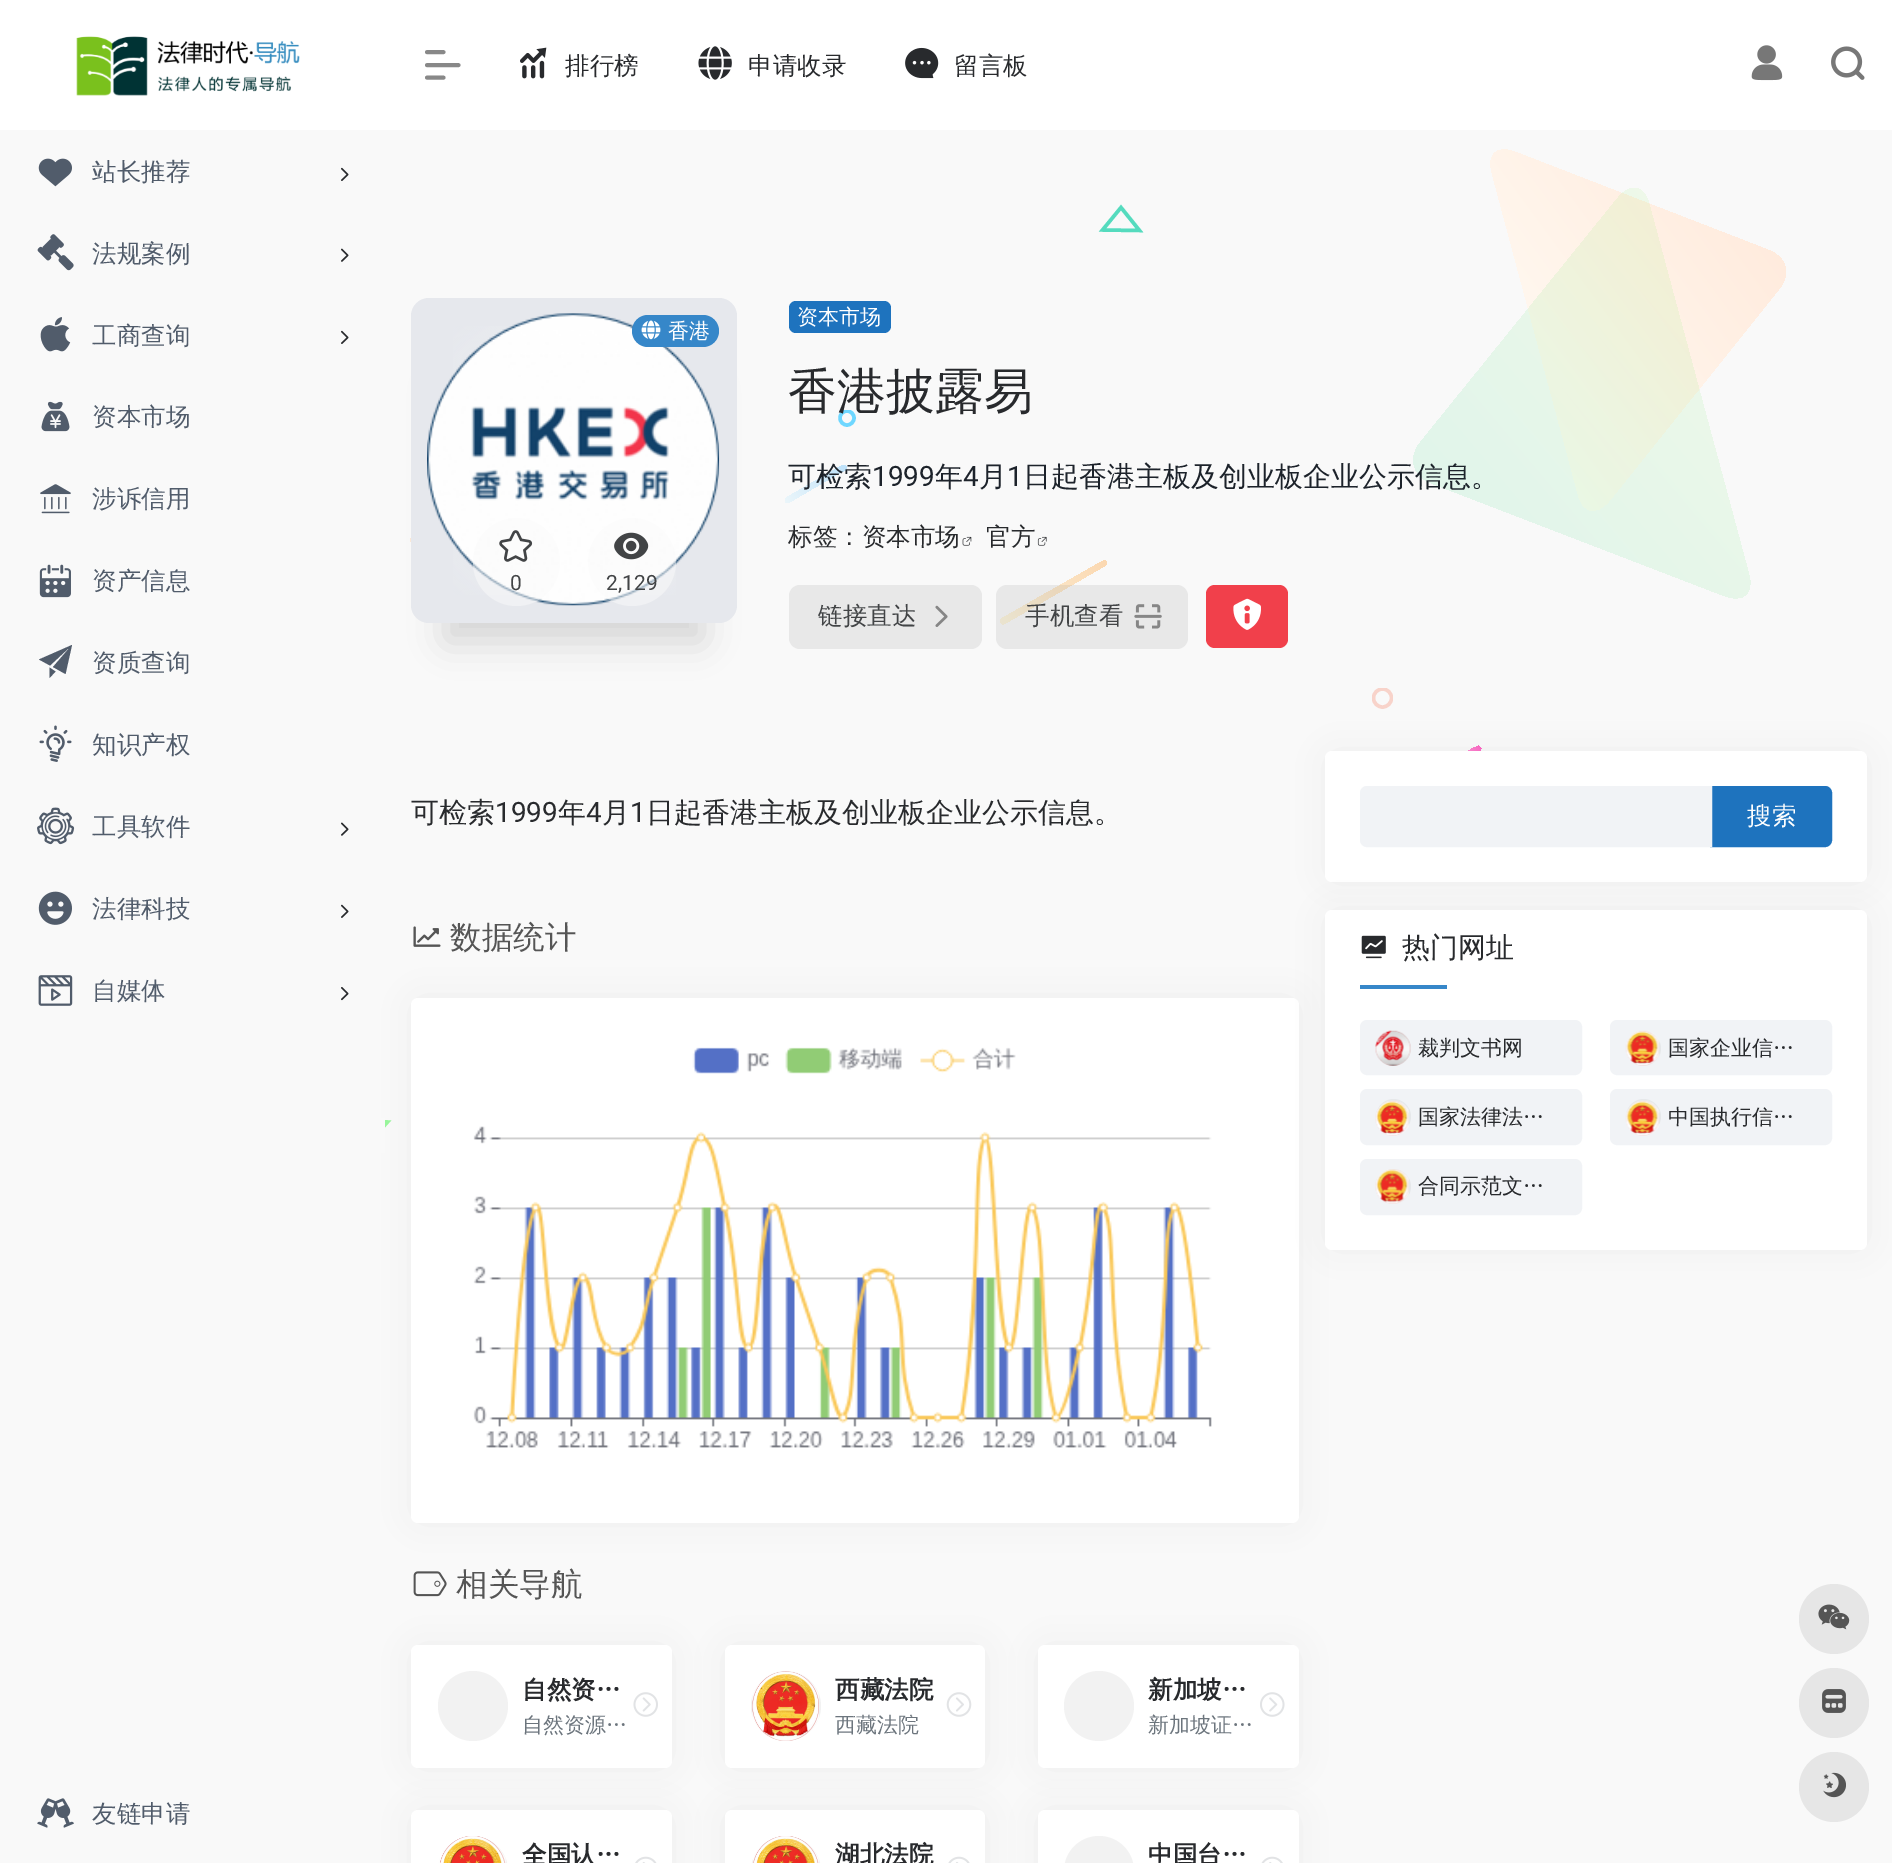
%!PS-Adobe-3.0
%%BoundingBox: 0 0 1892 1863
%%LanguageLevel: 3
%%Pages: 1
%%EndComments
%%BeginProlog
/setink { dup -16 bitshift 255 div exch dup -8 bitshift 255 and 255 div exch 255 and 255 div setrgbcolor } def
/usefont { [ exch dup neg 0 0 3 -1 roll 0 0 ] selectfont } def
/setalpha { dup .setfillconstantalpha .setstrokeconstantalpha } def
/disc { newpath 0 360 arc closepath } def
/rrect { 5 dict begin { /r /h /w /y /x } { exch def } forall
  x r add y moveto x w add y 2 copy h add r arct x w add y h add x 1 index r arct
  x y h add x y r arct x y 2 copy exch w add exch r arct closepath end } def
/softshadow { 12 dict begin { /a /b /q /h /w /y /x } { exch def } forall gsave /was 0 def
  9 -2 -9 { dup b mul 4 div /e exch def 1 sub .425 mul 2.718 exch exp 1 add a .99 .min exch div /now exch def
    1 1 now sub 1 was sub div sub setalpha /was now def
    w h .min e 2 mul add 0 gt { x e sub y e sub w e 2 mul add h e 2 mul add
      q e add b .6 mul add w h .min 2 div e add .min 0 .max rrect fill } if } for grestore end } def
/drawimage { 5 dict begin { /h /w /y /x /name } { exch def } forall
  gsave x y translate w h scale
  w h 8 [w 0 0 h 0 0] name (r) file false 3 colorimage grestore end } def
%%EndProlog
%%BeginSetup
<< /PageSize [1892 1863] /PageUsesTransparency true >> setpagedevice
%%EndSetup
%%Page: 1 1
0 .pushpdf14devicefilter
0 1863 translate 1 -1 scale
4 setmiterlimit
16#F9F9F9 setink
0 0 1892 1863 rectfill
16#98F69B setink
3.5 setlinewidth
387.5 1122 moveto 358 1120.5 lineto 363 1149 lineto closepath stroke
16#9E9E9E setink
420 1006 870 508 0 17.5 0.2 softshadow
16#F9F9F9 setink
355 1118 30 35 rectfill
16#FFFFFF setink
0 0 1892 130 rectfill
(img1.raw) 76 36 224 60 drawimage
(img2.raw) 38 158 34 29 drawimage
/WenQuanYiZenHei-Medium 24.5 usefont
16#515C6B setink
92 180 moveto (站长推荐) show
(img3.raw) 341 167 8 14 drawimage
(img4.raw) 37 234 37 37 drawimage
92 262 moveto (法规案例) show
(img5.raw) 341 248 8 14 drawimage
(img6.raw) 40 317 31 35 drawimage
92 344 moveto (工商查询) show
(img7.raw) 341 330 8 14 drawimage
(img8.raw) 41 401 29 31 drawimage
92 425 moveto (资本市场) show
(img9.raw) 40 484 31 30 drawimage
92 507 moveto (涉诉信用) show
(img10.raw) 39 564 32 34 drawimage
92 589 moveto (资产信息) show
55.5 671.5 moveto 49.5 667.5 lineto 49.5 678 lineto closepath 72 645 moveto 39 659.5 lineto 50 665.5 lineto 71.5 645.5 lineto 53 667 lineto 65.5 674 lineto closepath 65.5 674 moveto 65.5 674 lineto closepath fill
92 671 moveto (资质查询) show
(img11.raw) 39 725 33 37 drawimage
92 753 moveto (知识产权) show
(img12.raw) 37 807 38 38 drawimage
92 835 moveto (工具软件) show
(img13.raw) 341 822 8 14 drawimage
(img14.raw) 38 891 34 34 drawimage
92 917 moveto (法律科技) show
(img15.raw) 341 904 8 14 drawimage
(img16.raw) 38 975 35 31 drawimage
92 999 moveto (自媒体) show
(img17.raw) 341 987 8 14 drawimage
(img18.raw) 37 1798 37 30 drawimage
92 1822 moveto (友链申请) show
16#888888 setink
3.9 setlinewidth
1 setlinecap
1 setlinejoin
427 52 moveto 443.5 52 lineto 427 65 moveto 458.5 65 lineto 427 77.5 moveto 443.5 77.5 lineto stroke
(img19.raw) 520 47 27 32 drawimage
16#282A2D setink
565 74 moveto (排行榜) show
(img20.raw) 698 46 34 34 drawimage
748 74 moveto (申请收录) show
(img21.raw) 905 47 34 32 drawimage
954 74 moveto (留言板) show
(img22.raw) 1751 45 32 36 drawimage
(img23.raw) 1831 46 34 34 drawimage
gsave 1578 494 moveto 1492 173 lineto 1487 154 1497 145 1515 152 curveto 1768 250 lineto 1787 257 1791 274 1779 289 curveto 1609 501 lineto 1596 516 1583 513 1578 494 curveto closepath eoclip newpath
<< /ShadingType 2 /ColorSpace /DeviceRGB /Coords [1710 150 1452 340] /Extend [true true] /Function << /FunctionType 2 /Domain [0 1] /C0 [1 0.922 0.867] /C1 [1 0.984 0.957] /N 1 >> >> shfill grestore
16#55DBBE setink
3.5 setlinewidth
0 setlinecap
0 setlinejoin
1139.5 230.5 moveto 1121 207.5 lineto 1102.5 230 lineto closepath stroke
0.11 setalpha
gsave 1649 204 moveto 1749 575 lineto 1754 593 1743 603 1725 596 curveto 1431 483 lineto 1413 476 1408 458 1420 443 curveto 1618 198 lineto 1630 183 1644 185 1649 204 curveto closepath eoclip newpath
<< /ShadingType 2 /ColorSpace /DeviceRGB /Coords [1648 188 1366 425] /Extend [true true] /Function << /FunctionType 2 /Domain [0 1] /C0 [0.584 0.957 0.412] /C1 [0.082 0.816 0.431] /N 1 >> >> shfill grestore
gsave
838 410 18 17 rectclip
1 setalpha
16#6FD7FF setink
847 418 7 disc stroke
grestore
1 setalpha
gsave 786 498 moveto 843 465 lineto 846 466 lineto 849 470 841 472 836 475 curveto 788 503 lineto 785 503 784 499 786 498 curveto closepath eoclip newpath
<< /ShadingType 2 /ColorSpace /DeviceRGB /Coords [785 501 846 466] /Extend [true true] /Function << /FunctionType 2 /Domain [0 1] /C0 [0.922 0.965 0.98] /C1 [0.745 0.886 0.98] /N 1 >> >> shfill grestore
gsave 412 538 moveto 469 505 lineto 471 506 lineto 474 510 466 513 461 516 curveto 413 543 lineto 411 543 409 539 412 538 curveto closepath eoclip newpath
<< /ShadingType 2 /ColorSpace /DeviceRGB /Coords [411 542 471 507] /Extend [true true] /Function << /FunctionType 2 /Domain [0 1] /C0 [0.984 0.914 0.847] /C1 [0.984 0.792 0.8] /N 1 >> >> shfill grestore
gsave 1001 619 moveto 1103 561 lineto 1105 560 1107 561 1107 563 curveto 1106 565 lineto 1004 624 lineto 1001 625 999 621 1001 619 curveto closepath eoclip newpath
<< /ShadingType 2 /ColorSpace /DeviceRGB /Coords [1000 623 1107 562] /Extend [true true] /Function << /FunctionType 2 /Domain [0 1] /C0 [0.984 0.957 0.863] /C1 [0.984 0.847 0.694] /N 1 >> >> shfill grestore
gsave
1372 688 21 21 rectclip
16#F8D3CA setink
1382.5 698 9 disc stroke
grestore
gsave 1436 770 moveto 1441 767 1477 745 1479 746 curveto 1481 748 lineto 1482 752 1473 754 1473 755 curveto 1438 775 lineto 1436 775 1434 773 1435 772 curveto closepath eoclip newpath
<< /ShadingType 2 /ColorSpace /DeviceRGB /Coords [1435 773 1480 747] /Extend [true true] /Function << /FunctionType 2 /Domain [0 1] /C0 [0.992 0.898 0.949] /C1 [0.992 0.4 0.765] /N 1 >> >> shfill grestore
16#000000 setink
446 385 256 256 0 17.5 0.15 softshadow
16#E6E8ED setink
411 298 326 325 18 rrect fill
(img25.raw) 453 326 223 269 drawimage
(img24.raw) 427 313 293 293 drawimage
16#3687C9 setink
632 315 87 32 16 rrect fill
(img26.raw) 641 320 20 20 drawimage
/WenQuanYiZenHei-Medium 21 usefont
16#FFFFFF setink
668 338 moveto (香港) show
0.5 setalpha
16#FAFAFA setink
473 518 87 88 43.5 rrect fill
1 setalpha
(img27.raw) 499 530 34 32 drawimage
/Roboto-Regular 21 usefont
16#424446 setink
510 590 moveto (0) show
0.5 setalpha
16#FAFAFA setink
632 562 44 disc fill
1 setalpha
(img28.raw) 614 532 35 28 drawimage
16#424446 setink
606 590 moveto (2,129) show
16#1E73BE setink
789 301 102 32 7 rrect fill
/WenQuanYiZenHei-Medium 21 usefont
16#FFFFFF setink
797 324 moveto (资本市场) show
/WenQuanYiZenHei-Medium 49 usefont
16#282A2D setink
788 408 moveto (香港披露易) show
/WenQuanYiZenHei-Medium 28 usefont
16#1D232B setink
788 486 moveto (可检索) show
/Roboto-Regular 28 usefont
872 486 moveto (1999) show
/WenQuanYiZenHei-Medium 28 usefont
935 486 moveto (年) show
/Roboto-Regular 28 usefont
963 486 moveto (4) show
/WenQuanYiZenHei-Medium 28 usefont
979 486 moveto (月) show
/Roboto-Regular 28 usefont
1007 486 moveto (1) show
/WenQuanYiZenHei-Medium 28 usefont
1023 486 moveto (日起香港主板及创业板企业公示信息。) show
/WenQuanYiZenHei-Medium 24.5 usefont
16#282A2D setink
788 545 moveto (标签：资本市场) show
(img29.raw) 962 536 10 10 drawimage
986 545 moveto (官方) show
(img30.raw) 1037 536 10 10 drawimage
16#E8E8E8 setink
789 585 193 64 11 rrect fill
16#424446 setink
818 624 moveto (链接直达) show
(img31.raw) 935 605 13 22 drawimage
0.15 setalpha
16#8A8A8A setink
996 585 192 64 11 rrect fill
1 setalpha
16#424446 setink
1025 624 moveto (手机查看) show
(img32.raw) 1134 604 28 25 drawimage
16#F1404B setink
1206 585 82 63 9 rrect fill
(img33.raw) 1233 598 28 32 drawimage
/WenQuanYiZenHei-Medium 28 usefont
16#282A2D setink
411 822 moveto (可检索) show
/Roboto-Regular 28 usefont
495 822 moveto (1999) show
/WenQuanYiZenHei-Medium 28 usefont
558 822 moveto (年) show
/Roboto-Regular 28 usefont
586 822 moveto (4) show
/WenQuanYiZenHei-Medium 28 usefont
602 822 moveto (月) show
/Roboto-Regular 28 usefont
630 822 moveto (1) show
/WenQuanYiZenHei-Medium 28 usefont
646 822 moveto (日起香港主板及创业板企业公示信息。) show
(img34.raw) 413 926 28 21 drawimage
/WenQuanYiZenHei-Medium 31.5 usefont
16#555555 setink
450 948 moveto (数据统计) show
16#FFFFFF setink
411 998 888 525 7 rrect fill
(img35.raw) 473 1047 739 401 drawimage
(img36.raw) 413 1571 34 26 drawimage
16#555555 setink
456 1595 moveto (相关导航) show
16#9E9E9E setink
420 1654 243 105 0 17.5 0.2 softshadow
16#FFFFFF setink
411 1645 261 123 7 rrect fill
16#F2F2F2 setink
473 1706 35 disc fill
/WenQuanYiZenHei-Bold 24.5 usefont
16#282A2D setink
522 1698 moveto (自然资…) show
/WenQuanYiZenHei-Medium 21 usefont
16#6C757D setink
522 1732 moveto (自然资源…) show
(img37.raw) 633 1692 25 25 drawimage
16#9E9E9E setink
733 1654 244 105 0 17.5 0.2 softshadow
16#FFFFFF setink
725 1645 260 123 7 rrect fill
16#F2F2F2 setink
786 1706 35 disc fill
(img38.raw) 752 1671 67 70 drawimage
/WenQuanYiZenHei-Bold 24.5 usefont
16#282A2D setink
835 1698 moveto (西藏法院) show
/WenQuanYiZenHei-Medium 21 usefont
16#6C757D setink
835 1732 moveto (西藏法院) show
(img39.raw) 946 1692 26 25 drawimage
16#9E9E9E setink
1047 1654 243 105 0 17.5 0.2 softshadow
16#FFFFFF setink
1038 1645 261 123 7 rrect fill
16#F2F2F2 setink
1099 1706 35 disc fill
/WenQuanYiZenHei-Bold 24.5 usefont
16#282A2D setink
1148 1698 moveto (新加坡…) show
/WenQuanYiZenHei-Medium 21 usefont
16#6C757D setink
1148 1732 moveto (新加坡证…) show
(img40.raw) 1260 1692 25 25 drawimage
16#9E9E9E setink
420 1818 243 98 0 17.5 0.2 softshadow
16#FFFFFF setink
411 1810 261 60 7 rrect fill
16#F2F2F2 setink
438 1836 70 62 35 rrect fill
(img41.raw) 439 1836 67 27 drawimage
/WenQuanYiZenHei-Bold 24.5 usefont
16#282A2D setink
522 1863 moveto (全国认…) show
(img42.raw) 635 1856 22 7 drawimage
16#9E9E9E setink
733 1818 244 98 0 17.5 0.2 softshadow
16#FFFFFF setink
725 1810 260 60 7 rrect fill
16#F2F2F2 setink
751 1836 70 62 35 rrect fill
(img43.raw) 753 1836 66 27 drawimage
16#282A2D setink
835 1863 moveto (湖北法院) show
(img44.raw) 948 1856 22 7 drawimage
16#9E9E9E setink
1047 1818 243 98 0 17.5 0.2 softshadow
16#FFFFFF setink
1038 1810 261 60 7 rrect fill
16#F2F2F2 setink
1064 1836 70 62 35 rrect fill
16#282A2D setink
1148 1863 moveto (中国台…) show
(img45.raw) 1261 1856 22 7 drawimage
16#9E9E9E setink
1334 760 525 113 0 17.5 0.2 softshadow
16#FFFFFF setink
1325 751 542 131 7 rrect fill
16#1E73BE setink
1711 787 moveto 1825 787 lineto 1828.5 787 1831 789.5 1831 793 curveto 1831 840 lineto 1831 843.5 1828.5 846 1825 846 curveto 1711 846 lineto closepath gsave fill grestore
2 setlinewidth
stroke
16#F1F3F6 setink
1367 787 moveto 1711 787 lineto 1711 846 lineto 1367 846 lineto 1363.5 846 1361 843.5 1361 840 curveto 1361 793 lineto 1361 789.5 1363.5 787 1367 787 curveto closepath gsave fill grestore
stroke
/WenQuanYiZenHei-Medium 24.5 usefont
16#FFFFFF setink
1747 824 moveto (搜索) show
16#9E9E9E setink
1334 919 525 322 0 17.5 0.2 softshadow
16#FFFFFF setink
1325 910 542 340 7 rrect fill
(img46.raw) 1361 935 25 24 drawimage
/WenQuanYiZenHei-Medium 28 usefont
16#282A2D setink
1402 957 moveto (热门网址) show
16#3687C9 setink
1360 985 87 4 rectfill
16#F1F3F6 setink
1361 1021 220 53 6 rrect gsave fill grestore
stroke
16#E6E8EA setink
1393.5 1048.5 17.5 disc fill
(img47.raw) 1375 1030 36 36 drawimage
/WenQuanYiZenHei-Medium 21 usefont
16#282A2D setink
1418 1055 moveto (裁判文书网) show
16#F1F3F6 setink
1611 1021 220 53 6 rrect gsave fill grestore
stroke
16#E6E8EA setink
1643.5 1048.5 17.5 disc fill
(img48.raw) 1625 1030 35 36 drawimage
16#282A2D setink
1668 1055 moveto (国家企业信…) show
16#F1F3F6 setink
1361 1090 220 54 6 rrect gsave fill grestore
stroke
16#E6E8EA setink
1393.5 1116.5 17.5 disc fill
(img49.raw) 1375 1100 34 36 drawimage
16#282A2D setink
1418 1124 moveto (国家法律法…) show
16#F1F3F6 setink
1611 1090 220 54 6 rrect gsave fill grestore
stroke
16#E6E8EA setink
1643.5 1116.5 17.5 disc fill
(img50.raw) 1625 1100 35 36 drawimage
16#282A2D setink
1668 1124 moveto (中国执行信…) show
16#F1F3F6 setink
1361 1160 220 54 6 rrect gsave fill grestore
stroke
16#E6E8EA setink
1393.5 1186.5 17.5 disc fill
(img51.raw) 1375 1169 34 35 drawimage
16#282A2D setink
1418 1193 moveto (合同示范文…) show
16#E6E6E6 setink
1834 1619 35 disc fill
(img52.raw) 1818 1604 32 26 drawimage
1834 1703 35 disc fill
(img53.raw) 1822 1689 24 24 drawimage
1834 1787 35 disc fill
(img54.raw) 1823 1772 23 26 drawimage
.poppdf14devicefilter showpage
%%EOF
